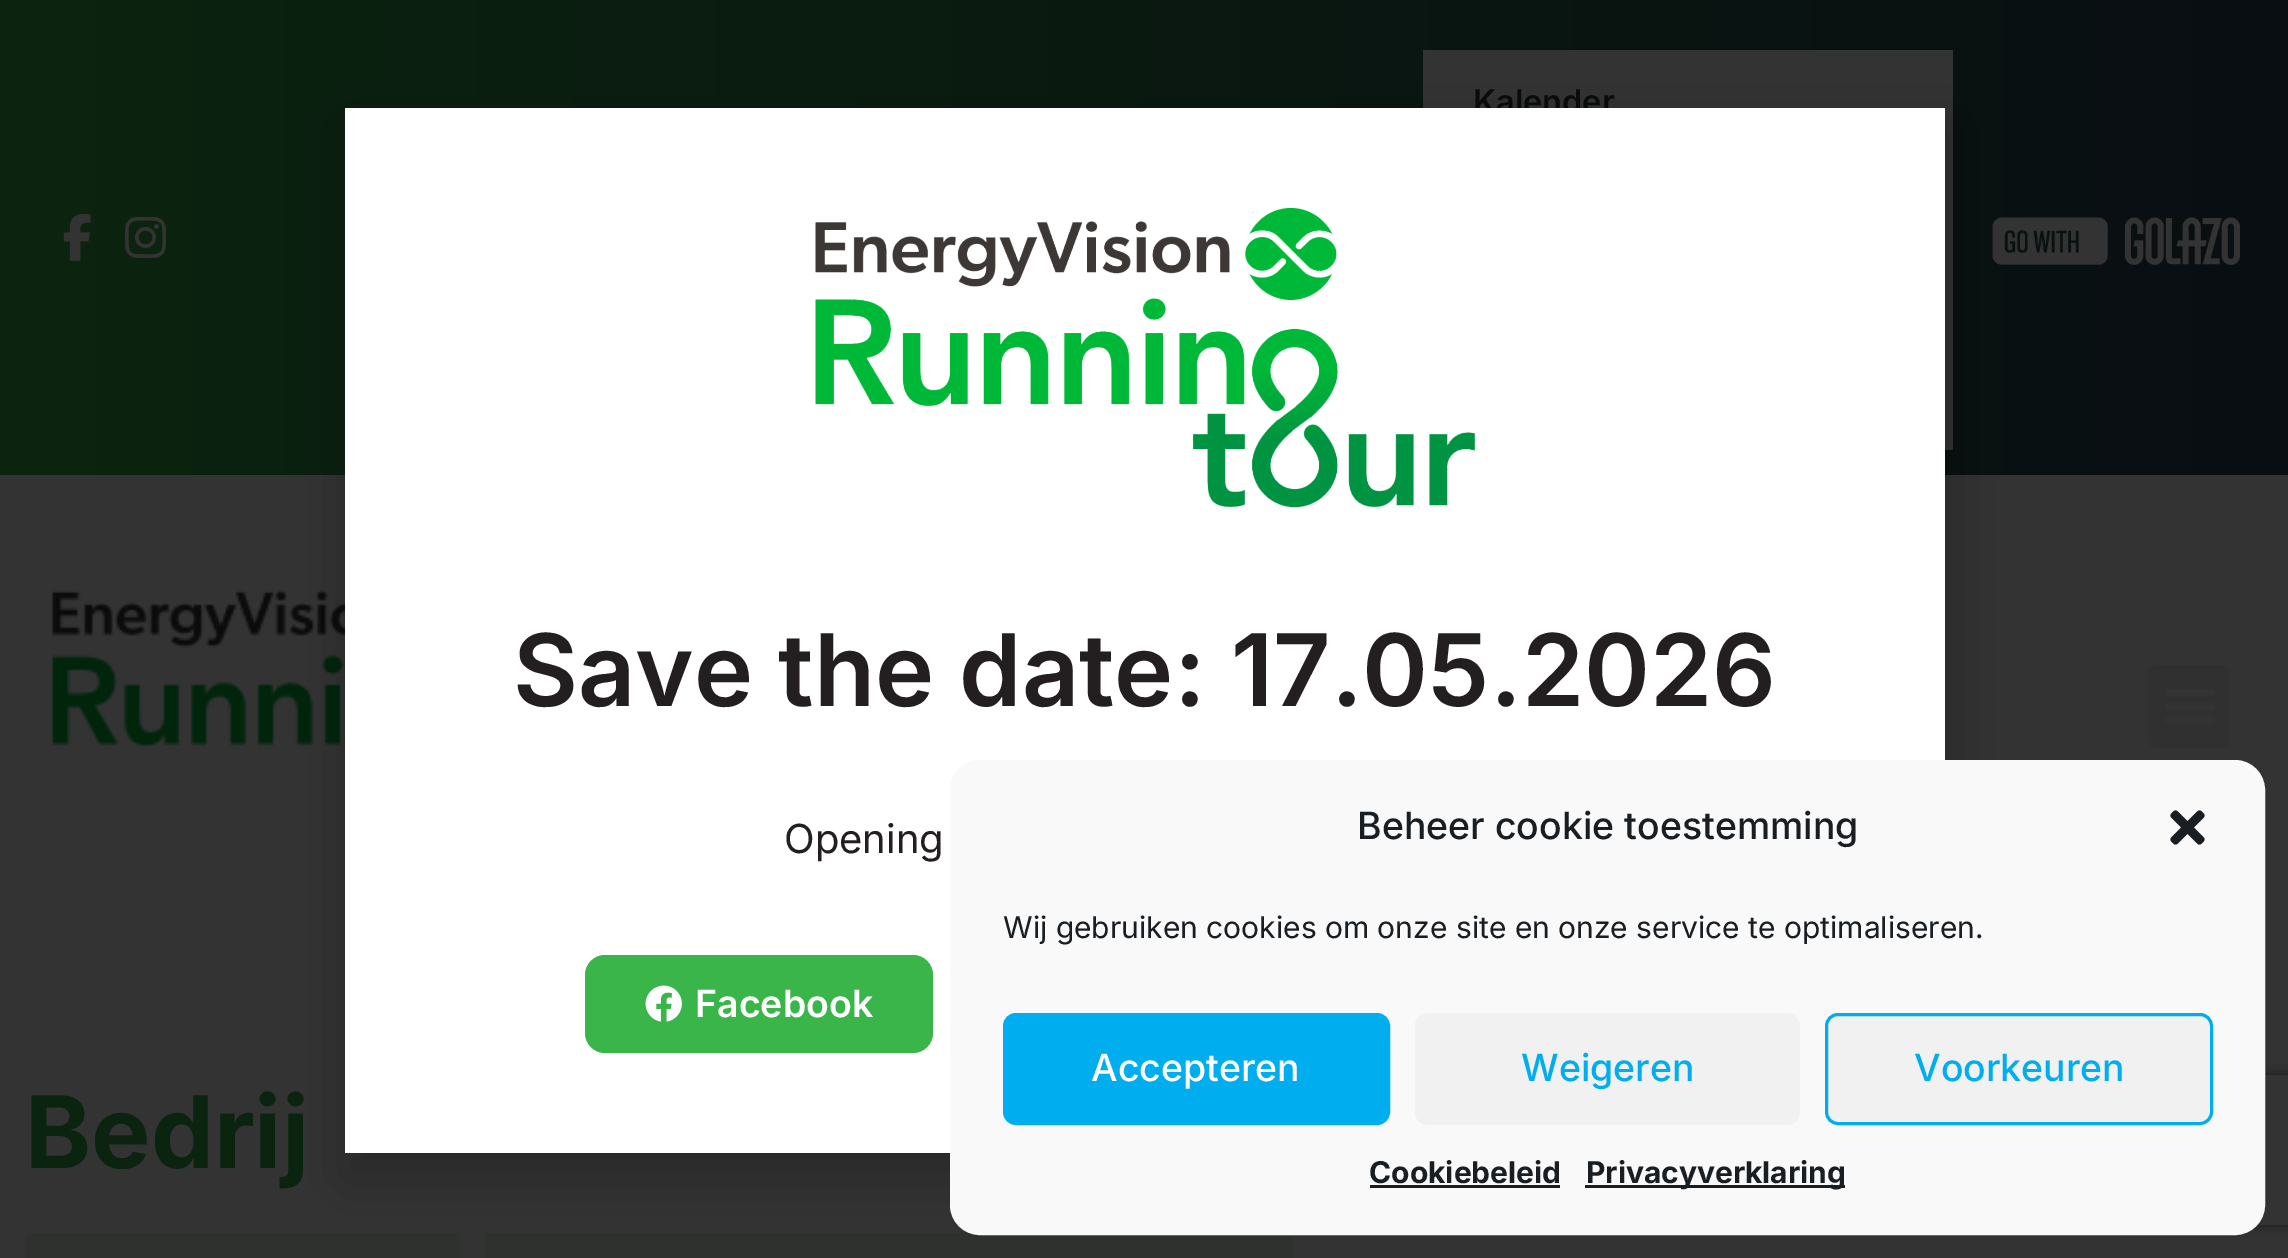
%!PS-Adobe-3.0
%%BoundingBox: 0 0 2288 1258
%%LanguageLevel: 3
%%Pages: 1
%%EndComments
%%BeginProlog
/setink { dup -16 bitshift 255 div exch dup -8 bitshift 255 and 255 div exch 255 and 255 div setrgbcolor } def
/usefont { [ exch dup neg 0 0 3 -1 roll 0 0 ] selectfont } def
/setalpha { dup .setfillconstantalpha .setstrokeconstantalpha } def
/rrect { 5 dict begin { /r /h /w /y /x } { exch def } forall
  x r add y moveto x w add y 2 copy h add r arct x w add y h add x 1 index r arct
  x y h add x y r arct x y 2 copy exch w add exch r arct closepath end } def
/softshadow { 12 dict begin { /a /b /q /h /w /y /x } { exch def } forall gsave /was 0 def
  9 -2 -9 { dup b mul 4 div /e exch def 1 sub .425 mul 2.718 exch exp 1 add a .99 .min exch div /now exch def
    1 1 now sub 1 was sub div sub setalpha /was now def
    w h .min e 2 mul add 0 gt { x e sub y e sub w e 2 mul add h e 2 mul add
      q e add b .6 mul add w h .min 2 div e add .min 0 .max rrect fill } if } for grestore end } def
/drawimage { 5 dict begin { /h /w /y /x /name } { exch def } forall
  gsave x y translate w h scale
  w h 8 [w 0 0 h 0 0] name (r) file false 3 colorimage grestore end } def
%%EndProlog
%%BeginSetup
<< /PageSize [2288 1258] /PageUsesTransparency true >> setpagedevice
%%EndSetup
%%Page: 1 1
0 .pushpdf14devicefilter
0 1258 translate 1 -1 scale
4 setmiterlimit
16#333333 setink
0 0 2288 1258 rectfill
gsave 0 0 moveto 2288 0 lineto 2288 475 lineto 0 475 lineto closepath clip newpath
<< /ShadingType 2 /ColorSpace /DeviceRGB /Coords [0 238 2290 237] /Extend [true true] /Function << /FunctionType 2 /Domain [0 1] /C0 [0.043 0.141 0.059] /C1 [0.035 0.055 0.071] /N 1 >> >> shfill grestore
1423 50 530 400 rectfill
/Inter-SemiBold 32.5 usefont
16#0A0B0C setink
1473 113 moveto (Kalender) show
(img1.raw) 1992 217 248 48 drawimage
(img2.raw) 63 214 28 47 drawimage
(img3.raw) 125 216 41 42 drawimage
(img4.raw) 52 589 293 159 drawimage
16#303030 setink
2148 665 82 83 8 rrect fill
(img5.raw) 2165 689 50 35 drawimage
16#2F312F setink
25 1233 435 25 rectfill
485 1233 808 25 rectfill
16#000000 setink
343 120 1615 1060 0 29 0.2 softshadow
16#FFFFFF setink
345 108 1600 1045 rectfill
(img6.raw) 815 208 661 300 drawimage
/Inter-SemiBold 100 usefont
16#231F20 setink
513 706 moveto (Save the date: 17.05.2026) show
/Inter-Regular 40 usefont
784 853 moveto (Opening) show
16#39B54A setink
585 955 348 98 20 rrect fill
(img7.raw) 645 985 37 37 drawimage
/Inter-SemiBold 37.5 usefont
16#FFFFFF setink
695 1017 moveto (Facebook) show
/Inter-Bold 100 usefont
16#0B240F setink
25 1168 moveto (Bedrij) show
gsave
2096 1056 moveto 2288 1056 lineto 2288 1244 lineto 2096 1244 lineto closepath 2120 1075 moveto 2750 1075 lineto 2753 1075 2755 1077 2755 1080 curveto 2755 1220 lineto 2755 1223 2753 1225 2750 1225 curveto 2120 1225 lineto 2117 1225 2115 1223 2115 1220 curveto 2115 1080 lineto 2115 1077 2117 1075 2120 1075 curveto closepath eoclip newpath
16#1A1A1A setink
2115 1075 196 150 5 6 1 softshadow
grestore
16#F9F9F9 setink
951.5 761.5 1312 472 28.5 rrect gsave fill grestore
3 setlinewidth
stroke
/Inter-Medium 37.5 usefont
16#191E23 setink
1357 839 moveto (Beheer cookie toestemming) show
(img8.raw) 2170 810 35 35 drawimage
/Inter-Regular 30 usefont
1003 938 moveto (Wij gebruiken cookies om onze site en onze service te optimaliseren.) show
16#00ADEE setink
1004.5 1014.5 384 109 11.5 rrect gsave fill grestore
stroke
/Inter-Medium 37.5 usefont
16#FFFFFF setink
1091 1081 moveto (Accepteren) show
16#F1F1F1 setink
1415 1013 385 112 13 rrect fill
16#00ADEE setink
1521 1081 moveto (Weigeren) show
16#F1F1F1 setink
1826.5 1014.5 385 109 11.5 rrect gsave fill grestore
16#00ADEE setink
stroke
1914 1081 moveto (Voorkeuren) show
/Inter-Bold 30 usefont
16#191E23 setink
1369 1183 moveto (Cookiebeleid) show
1370 1185 190 3 rectfill
1585 1185 260 3 rectfill
1586 1183 moveto (Privacyverklaring) show
.poppdf14devicefilter showpage
%%EOF
